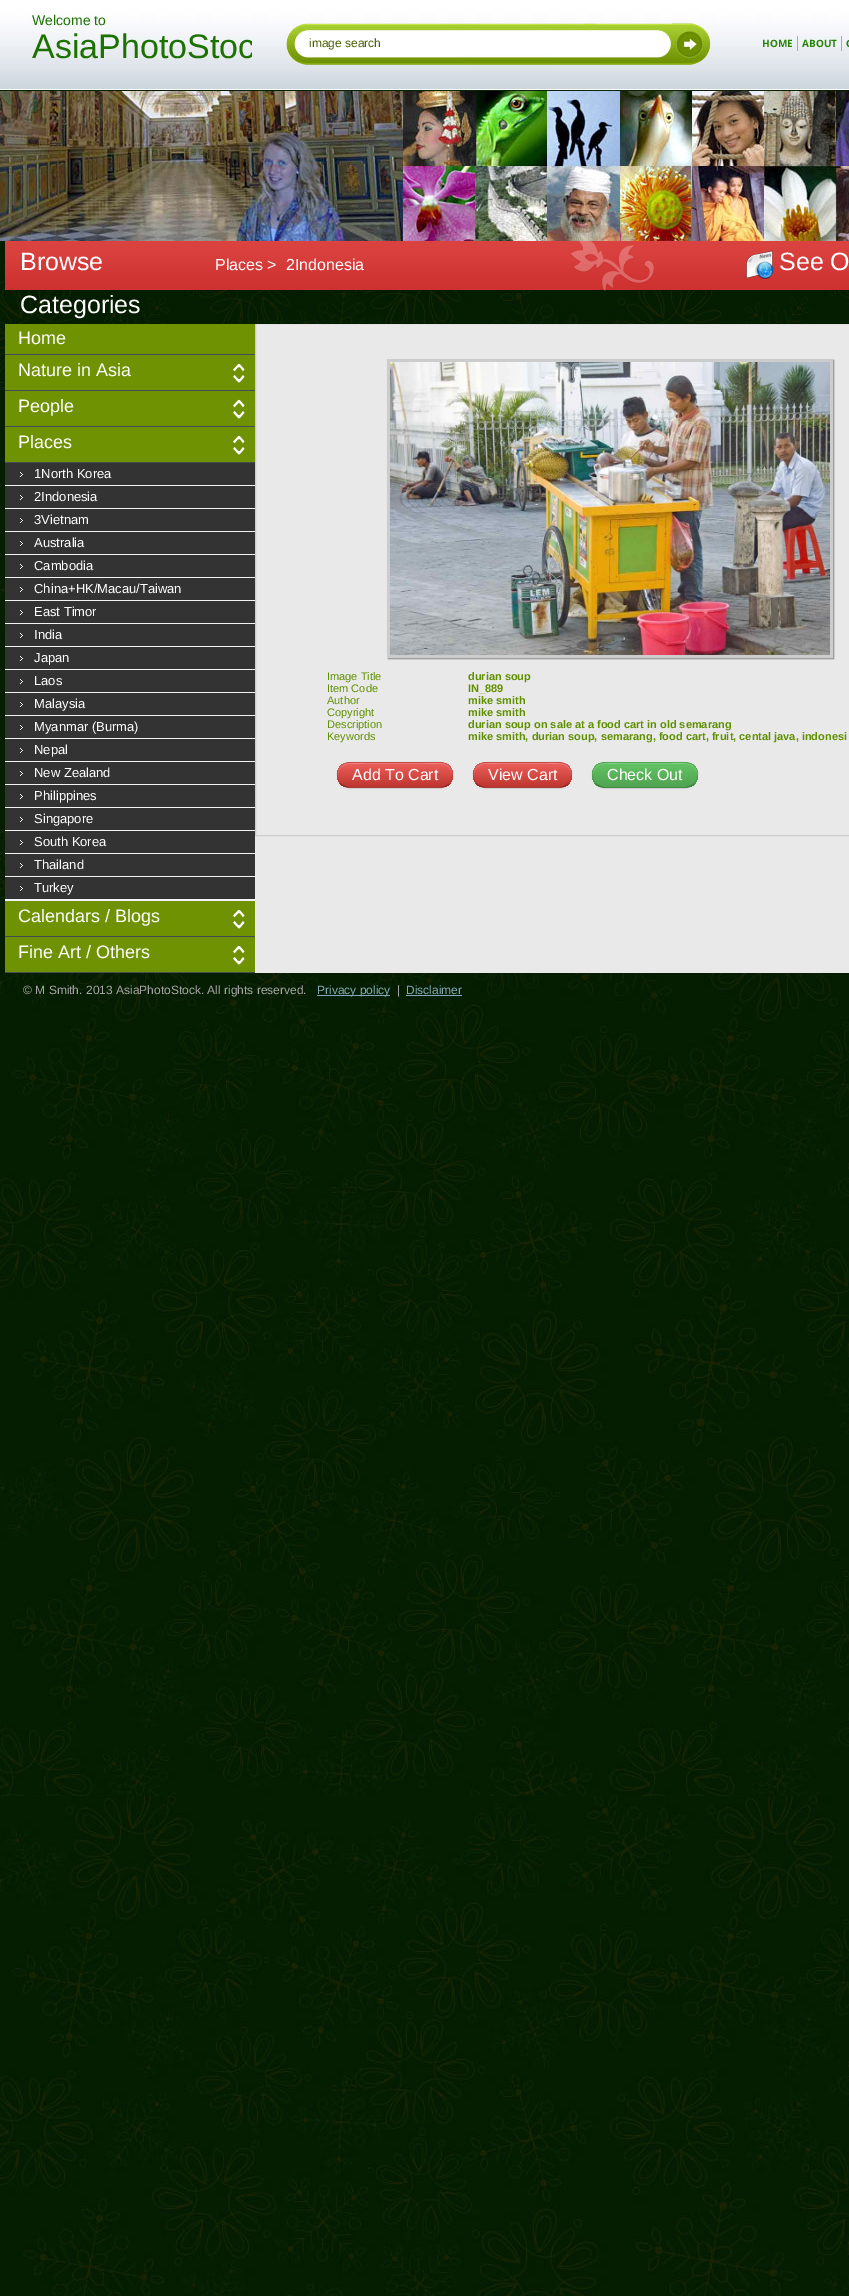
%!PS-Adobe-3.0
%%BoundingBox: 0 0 849 2296
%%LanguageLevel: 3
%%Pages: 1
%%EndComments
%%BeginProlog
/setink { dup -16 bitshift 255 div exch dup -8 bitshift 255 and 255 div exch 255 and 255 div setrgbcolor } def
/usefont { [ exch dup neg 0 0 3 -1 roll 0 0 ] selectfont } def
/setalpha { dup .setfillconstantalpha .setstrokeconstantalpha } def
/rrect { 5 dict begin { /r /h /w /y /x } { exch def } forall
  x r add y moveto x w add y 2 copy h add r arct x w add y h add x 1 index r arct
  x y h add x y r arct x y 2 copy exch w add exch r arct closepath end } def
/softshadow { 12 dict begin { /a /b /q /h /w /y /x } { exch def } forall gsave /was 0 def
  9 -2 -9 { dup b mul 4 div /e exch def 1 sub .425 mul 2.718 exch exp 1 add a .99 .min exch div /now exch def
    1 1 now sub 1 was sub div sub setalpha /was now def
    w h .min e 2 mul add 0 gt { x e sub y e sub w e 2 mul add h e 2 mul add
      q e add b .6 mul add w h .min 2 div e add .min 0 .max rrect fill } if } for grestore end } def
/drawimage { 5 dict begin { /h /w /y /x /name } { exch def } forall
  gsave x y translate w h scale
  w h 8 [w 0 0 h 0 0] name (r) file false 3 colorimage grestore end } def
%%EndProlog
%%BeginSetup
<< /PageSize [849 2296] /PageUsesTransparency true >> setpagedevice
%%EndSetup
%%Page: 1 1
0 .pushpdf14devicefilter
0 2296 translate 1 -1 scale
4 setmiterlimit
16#FFFFFF setink
0 0 849 2296 rectfill
(img1.raw) 0 90 849 2206 drawimage
(img2.raw) 325 90 452 1 drawimage
(img3.raw) 0 0 849 90 drawimage
/LiberationSans-Regular 14 usefont
16#1C7100 setink
32 25 moveto (Welcome to) show
gsave
32 33 220 36 rectclip
/LiberationSans-Regular 34 usefont
32 58 moveto (AsiaPhotoStoc) show
grestore
(img4.raw) 286 23 386 42 drawimage
/LiberationSans-Regular 12 usefont
16#475E00 setink
309 47 moveto (image search) show
(img5.raw) 672 23 39 42 drawimage
/OpenSans-Bold 10 usefont
16#278205 setink
762 47 moveto (HOME) show
16#AAAAAA setink
797 36 1 15 rectfill
16#278205 setink
802 47 moveto (ABOUT) show
16#AAAAAA setink
841 36 1 15 rectfill
16#278205 setink
846 47 moveto (C) show
(img6.raw) 0 91 849 150 drawimage
(img7.raw) 5 241 844 50 drawimage
/LiberationSans-Regular 25 usefont
16#FFFFFF setink
20 270 moveto (Browse) show
20 313 moveto (Categories) show
/LiberationSans-Regular 16 usefont
215 270 moveto (Places >  2Indonesia) show
(img8.raw) 744 250 30 29 drawimage
/LiberationSans-Regular 25 usefont
779 270 moveto (See O) show
[
    [255 324 594 649 16#E9E9E9]
    [5 354 250 619 16#454B54]
    [5 324 250 30 16#6F9203]
] { aload pop setink rectfill } forall
/LiberationSans-Regular 18 usefont
16#FFFFFF setink
18 344 moveto (Home) show
16#6F9203 setink
5 355 250 35 rectfill
(img9.raw) 233 363 12 20 drawimage
16#FFFFFF setink
18 376 moveto (Nature in Asia) show
16#6F9203 setink
5 391 250 35 rectfill
(img9.raw) 233 399 12 20 drawimage
16#FFFFFF setink
18 412 moveto (People) show
16#6F9203 setink
5 427 250 35 rectfill
(img9.raw) 233 435 12 20 drawimage
16#FFFFFF setink
18 448 moveto (Places) show
16#F4F4F8 setink
5 485 250 416 rectfill
16#333333 setink
5 463 250 22 rectfill
(img10.raw) 20 472 3 5 drawimage
/LiberationSans-Regular 13 usefont
16#FFFFFF setink
34 478 moveto (1North Korea) show
16#333333 setink
5 486 250 22 rectfill
(img10.raw) 20 495 3 5 drawimage
16#FFFFFF setink
34 501 moveto (2Indonesia) show
16#333333 setink
5 509 250 22 rectfill
(img10.raw) 20 518 3 5 drawimage
16#FFFFFF setink
34 524 moveto (3Vietnam) show
16#333333 setink
5 532 250 22 rectfill
(img10.raw) 20 541 3 5 drawimage
16#FFFFFF setink
34 547 moveto (Australia) show
16#333333 setink
5 555 250 22 rectfill
(img10.raw) 20 564 3 5 drawimage
16#FFFFFF setink
34 570 moveto (Cambodia) show
16#333333 setink
5 578 250 22 rectfill
(img10.raw) 20 587 3 5 drawimage
16#FFFFFF setink
34 593 moveto (China+HK/Macau/Taiwan) show
16#333333 setink
5 601 250 22 rectfill
(img10.raw) 20 610 3 5 drawimage
16#FFFFFF setink
34 616 moveto (East Timor) show
16#333333 setink
5 624 250 22 rectfill
(img10.raw) 20 633 3 5 drawimage
16#FFFFFF setink
34 639 moveto (India) show
16#333333 setink
5 647 250 22 rectfill
(img10.raw) 20 656 3 5 drawimage
16#FFFFFF setink
34 662 moveto (Japan) show
16#333333 setink
5 670 250 22 rectfill
(img10.raw) 20 679 3 5 drawimage
16#FFFFFF setink
34 685 moveto (Laos) show
16#333333 setink
5 693 250 22 rectfill
(img10.raw) 20 702 3 5 drawimage
16#FFFFFF setink
34 708 moveto (Malaysia) show
16#333333 setink
5 716 250 22 rectfill
(img10.raw) 20 725 3 5 drawimage
16#FFFFFF setink
34 731 moveto (Myanmar \(Burma\)) show
16#333333 setink
5 739 250 22 rectfill
(img10.raw) 20 748 3 5 drawimage
16#FFFFFF setink
34 754 moveto (Nepal) show
16#333333 setink
5 762 250 22 rectfill
(img10.raw) 20 771 3 5 drawimage
16#FFFFFF setink
34 777 moveto (New Zealand) show
16#333333 setink
5 785 250 22 rectfill
(img10.raw) 20 794 3 5 drawimage
16#FFFFFF setink
34 800 moveto (Philippines) show
16#333333 setink
5 808 250 22 rectfill
(img10.raw) 20 817 3 5 drawimage
16#FFFFFF setink
34 823 moveto (Singapore) show
16#333333 setink
5 831 250 22 rectfill
(img10.raw) 20 840 3 5 drawimage
16#FFFFFF setink
34 846 moveto (South Korea) show
16#333333 setink
5 854 250 22 rectfill
(img10.raw) 20 863 3 5 drawimage
16#FFFFFF setink
34 869 moveto (Thailand) show
16#333333 setink
5 877 250 22 rectfill
(img10.raw) 20 886 3 5 drawimage
16#FFFFFF setink
34 892 moveto (Turkey) show
16#6F9203 setink
5 901 250 35 rectfill
(img9.raw) 233 909 12 20 drawimage
/LiberationSans-Regular 18 usefont
16#FFFFFF setink
18 922 moveto (Calendars / Blogs) show
16#6F9203 setink
5 937 250 35 rectfill
(img9.raw) 233 945 12 20 drawimage
16#FFFFFF setink
18 958 moveto (Fine Art / Others) show
gsave
5 324 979 649 rectclip
16#CCCCCC setink
255.5 323.5 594 512 rectstroke
grestore
16#7E7E7E setink
388 360 446 299 0 0.5 1 softshadow
16#CCCCCC setink
3 setlinewidth
388.5 360.5 443 296 rectstroke
(img11.raw) 390 362 440 293 drawimage
/LiberationSans-Regular 11 usefont
16#5F9000 setink
327 680 moveto (Image Title) show
/LiberationSans-Bold 11 usefont
468 680 moveto (durian soup) show
/LiberationSans-Regular 11 usefont
327 692 moveto (Item Code) show
/LiberationSans-Bold 11 usefont
468 692 moveto (IN_889) show
/LiberationSans-Regular 11 usefont
327 704 moveto (Author) show
/LiberationSans-Bold 11 usefont
468 704 moveto (mike smith) show
/LiberationSans-Regular 11 usefont
327 716 moveto (Copyright) show
/LiberationSans-Bold 11 usefont
468 716 moveto (mike smith) show
/LiberationSans-Regular 11 usefont
327 728 moveto (Description) show
/LiberationSans-Bold 11 usefont
468 728 moveto (durian soup on sale at a food cart in old semarang) show
/LiberationSans-Regular 11 usefont
327 740 moveto (Keywords) show
/LiberationSans-Bold 11 usefont
468 740 moveto (mike smith, durian soup, semarang, food cart, fruit, cental java, indonesi) show
16#000000 setink
337 763 116 26 13 1 0.05 softshadow
16#DA4F49 setink
337 762 116 26 13 rrect fill
gsave
337 762 116 26 13 rrect clip newpath
gsave 337 763 moveto 453 763 lineto 453 787 lineto 337 787 lineto closepath clip newpath
<< /ShadingType 2 /ColorSpace /DeviceRGB /Coords [395 763 395 787] /Extend [true true] /Function << /FunctionType 2 /Domain [0 1] /C0 [0.933 0.373 0.357] /C1 [0.741 0.212 0.184] /N 1 >> >> shfill grestore
grestore
0.2 setalpha
16#FFFFFF setink
350 764 moveto 440 764 lineto 447 764 452 769 452 775 curveto 453 760 434 763 425 763 curveto 365 763 lineto 356 763 337 760 338 775 curveto 338 769 343 764 350 764 curveto closepath fill
0.25 setalpha
16#000000 setink
1 setlinewidth
449 784 moveto 446.5 786 443.5 787.5 440 787.5 curveto 350 787.5 lineto 346.5 787.5 343.5 786 341 784 curveto stroke
0.1 setalpha
341 784 moveto 338 781 337 776.5 337.5 772.5 curveto 340.5 759.5 355.5 762.5 365 762.5 curveto 425 762.5 lineto 434.5 762.5 449.5 759.5 452.5 772.5 curveto 453 776.5 452 781 449 784 curveto stroke
/LiberationSans-Regular 16 usefont
1 setalpha
16#FFFFFF setink
352 780 moveto (Add To Cart) show
16#000000 setink
473 763 99 26 13 1 0.05 softshadow
16#DA4F49 setink
473 762 99 26 13 rrect fill
gsave
473 762 99 26 13 rrect clip newpath
gsave 473 763 moveto 572 763 lineto 572 787 lineto 473 787 lineto closepath clip newpath
<< /ShadingType 2 /ColorSpace /DeviceRGB /Coords [523 763 523 787] /Extend [true true] /Function << /FunctionType 2 /Domain [0 1] /C0 [0.933 0.373 0.357] /C1 [0.741 0.212 0.184] /N 1 >> >> shfill grestore
grestore
0.2 setalpha
16#FFFFFF setink
486 764 moveto 559 764 lineto 566 764 571 769 571 775 curveto 572 761 556 763 547 763 curveto 498 763 lineto 489 763 473 761 474 775 curveto 474 769 479 764 486 764 curveto closepath fill
0.25 setalpha
16#000000 setink
568 784 moveto 565.5 786 562.5 787.5 559 787.5 curveto 486 787.5 lineto 482.5 787.5 479.5 786 477 784 curveto stroke
0.1 setalpha
477 784 moveto 474 781 473 776.5 473.5 772.5 curveto 476 760.5 489 762.5 498 762.5 curveto 547 762.5 lineto 556 762.5 569 760.5 571.5 772.5 curveto 572 776.5 571 781 568 784 curveto stroke
1 setalpha
16#FFFFFF setink
488 780 moveto (View Cart) show
16#000000 setink
592 763 106 26 13 1 0.05 softshadow
16#5BB75B setink
592 762 106 26 13 rrect fill
gsave
592 762 106 26 13 rrect clip newpath
gsave 592 763 moveto 698 763 lineto 698 787 lineto 592 787 lineto closepath clip newpath
<< /ShadingType 2 /ColorSpace /DeviceRGB /Coords [645 763 645 787] /Extend [true true] /Function << /FunctionType 2 /Domain [0 1] /C0 [0.384 0.769 0.384] /C1 [0.318 0.639 0.318] /N 1 >> >> shfill grestore
grestore
0.2 setalpha
16#FFFFFF setink
605 764 moveto 685 764 lineto 692 764 697 769 697 775 curveto 698 761 681 763 672 763 curveto 618 763 lineto 609 763 592 761 593 775 curveto 593 769 598 764 605 764 curveto closepath fill
0.25 setalpha
16#000000 setink
694 784 moveto 691.5 786 688.5 787.5 685 787.5 curveto 605 787.5 lineto 601.5 787.5 598.5 786 596 784 curveto stroke
0.1 setalpha
596 784 moveto 593 781 592 776.5 592.5 772.5 curveto 595 760 609 762.5 618.5 762.5 curveto 671.5 762.5 lineto 681 762.5 695 760 697.5 772.5 curveto 698 776.5 697 781 694 784 curveto stroke
1 setalpha
16#FFFFFF setink
607 780 moveto (Check Out) show
/LiberationSans-Regular 12 usefont
16#A7A7A7 setink
23 994 moveto (© M Smith. 2013 AsiaPhotoStock. All rights reserved.) show
16#82A9B5 setink
317 995 73 1 rectfill
317 994 moveto (Privacy policy) show
16#A7A7A7 setink
397 994 moveto (|) show
16#82A9B5 setink
406 994 moveto (Disclaimer) show
406 995 56 1 rectfill
.poppdf14devicefilter showpage
%%EOF
